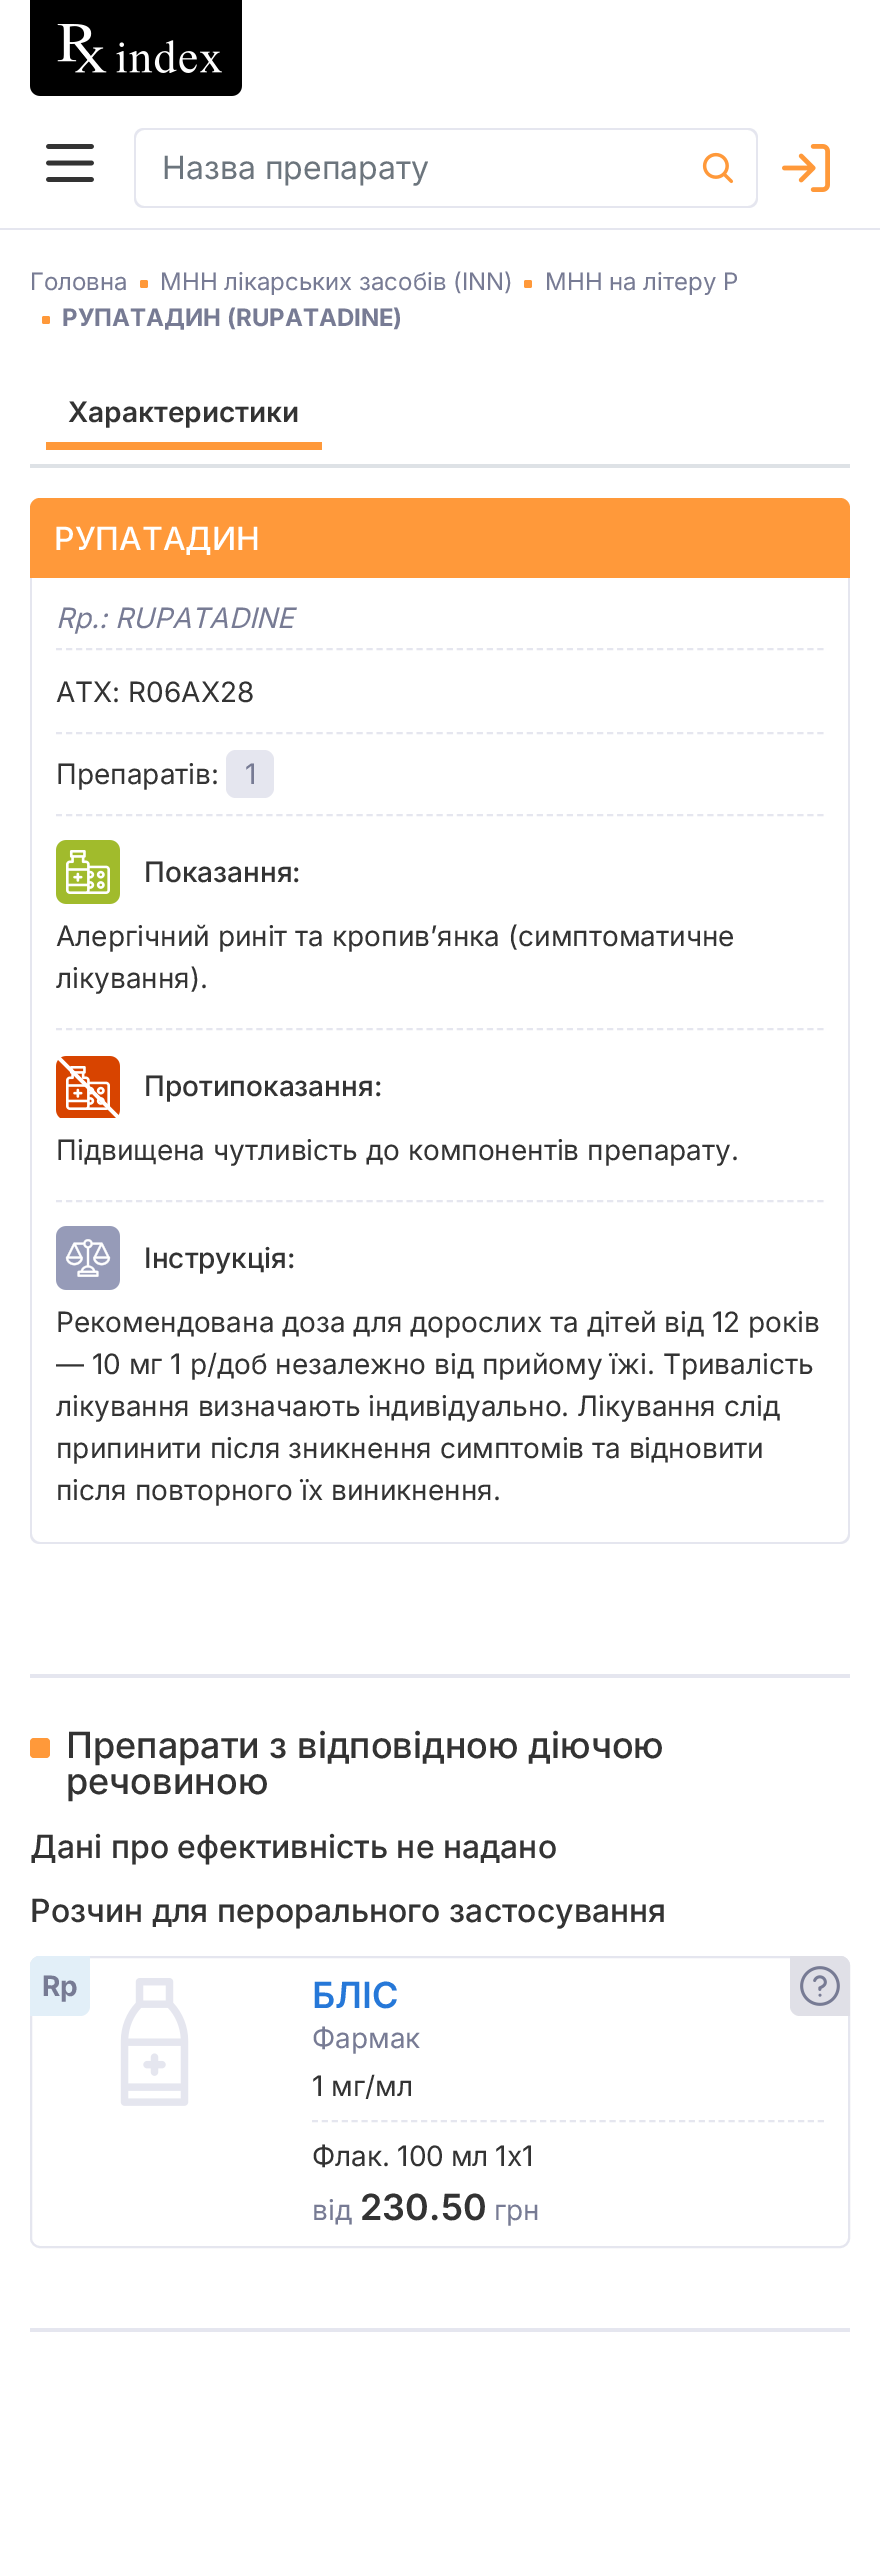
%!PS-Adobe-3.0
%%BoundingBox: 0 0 880 2559
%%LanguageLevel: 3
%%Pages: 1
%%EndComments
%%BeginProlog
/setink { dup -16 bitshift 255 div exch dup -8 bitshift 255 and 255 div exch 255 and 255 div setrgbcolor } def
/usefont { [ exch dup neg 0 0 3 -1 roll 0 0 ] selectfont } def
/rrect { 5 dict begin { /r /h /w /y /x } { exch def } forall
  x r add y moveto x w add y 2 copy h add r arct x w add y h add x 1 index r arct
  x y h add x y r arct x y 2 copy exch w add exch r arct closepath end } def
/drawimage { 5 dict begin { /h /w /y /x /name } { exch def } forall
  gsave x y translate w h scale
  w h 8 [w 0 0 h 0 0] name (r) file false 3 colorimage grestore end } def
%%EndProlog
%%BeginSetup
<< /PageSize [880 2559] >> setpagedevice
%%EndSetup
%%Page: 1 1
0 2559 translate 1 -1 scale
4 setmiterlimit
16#FFFFFF setink
0 0 880 2559 rectfill
16#E5E6EF setink
0 228 880 2 rectfill
(img1.raw) 30 0 212 96 drawimage
(img2.raw) 46 144 48 38 drawimage
678 128 moveto 748 128 lineto 754 128 758 132 758 138 curveto 758 198 lineto 758 204 754 208 748 208 curveto 678 208 lineto closepath 678 130 moveto 748 130 lineto 752 130 756 134 756 138 curveto 756 198 lineto 756 202 752 206 748 206 curveto 678 206 lineto closepath eofill
144 128 moveto 680 128 lineto 680 208 lineto 144 208 lineto 138 208 134 204 134 198 curveto 134 138 lineto 134 132 138 128 144 128 curveto closepath 144 130 moveto 680 130 lineto 680 206 lineto 144 206 lineto 140 206 136 202 136 198 curveto 136 138 lineto 136 134 140 130 144 130 curveto closepath eofill
/Inter-Regular 32 usefont
16#6C757D setink
162 179 moveto (Назва препарату) show
(img3.raw) 702 152 32 32 drawimage
(img4.raw) 782 144 48 48 drawimage
/Inter-Regular 24 usefont
16#777B94 setink
30 290 moveto (Головна) show
16#FF993A setink
140 280 8 8 2 rrect fill
16#777B94 setink
160 290 moveto (МНН лікарських засобів \(INN\)) show
16#FF993A setink
524 280 8 8 2 rrect fill
16#777B94 setink
545 290 moveto (МНН на літеру Р) show
16#FF993A setink
42 316 8 8 2 rrect fill
/Inter-Bold 24 usefont
16#777B94 setink
62 326 moveto (РУПАТАДИН \(RUPATADINE\)) show
16#DEE2E6 setink
30 464 820 4 rectfill
16#FF993A setink
46 442 276 8 rectfill
/Inter-SemiBold 28 usefont
16#333333 setink
68 422 moveto (Характеристики) show
16#FF993A setink
40 498 moveto 840 498 lineto 845.5 498 850 502.5 850 508 curveto 850 578 lineto 30 578 lineto 30 508 lineto 30 502.5 34.5 498 40 498 curveto closepath fill
/Inter-Medium 32 usefont
16#FFFFFF setink
54 550 moveto (РУПАТАДИН) show
16#E5E6EF setink
30 578 moveto 850 578 lineto 850 1534 lineto 850 1540 846 1544 840 1544 curveto 40 1544 lineto 34 1544 30 1540 30 1534 curveto closepath 32 578 moveto 848 578 lineto 848 1534 lineto 848 1538 844 1542 840 1542 curveto 40 1542 lineto 36 1542 32 1538 32 1534 curveto closepath eofill
2 setlinewidth
[6 4.02] 0 setdash
56 649 moveto 824 649 lineto stroke
/Inter-Italic 28 usefont
16#777B94 setink
56 628 moveto (Rp.: RUPATADINE) show
16#E5E6EF setink
56 733 moveto 824 733 lineto stroke
/Inter-Regular 28 usefont
16#333333 setink
56 702 moveto (АТХ: R06AX28) show
16#E5E6EF setink
56 815 moveto 824 815 lineto stroke
16#333333 setink
56 784 moveto (Препаратів:) show
16#E5E6EF setink
226 750 48 48 10 rrect fill
16#777B94 setink
245 784 moveto (1) show
(img5.raw) 56 840 64 64 drawimage
/Inter-Medium 28 usefont
16#333333 setink
144 882 moveto (Показання:) show
16#E5E6EF setink
56 1029 moveto 824 1029 lineto stroke
/Inter-Regular 28 usefont
16#333333 setink
56 946 moveto (Алергічний риніт та кропив’янка \(симптоматичне) show
56 988 moveto (лікування\).) show
(img6.raw) 56 1056 64 62 drawimage
/Inter-Medium 28 usefont
144 1096 moveto (Протипоказання:) show
16#E5E6EF setink
56 1201 moveto 824 1201 lineto stroke
/Inter-Regular 28 usefont
16#333333 setink
56 1160 moveto (Підвищена чутливість до компонентів препарату.) show
(img7.raw) 56 1226 64 64 drawimage
/Inter-Medium 28 usefont
144 1268 moveto (Інструкція:) show
/Inter-Regular 28 usefont
[
    [(Рекомендована доза для дорослих та дітей від 12 років) 56 1332]
    [(— 10 мг 1 р/доб незалежно від прийому їжі. Тривалість) 56 1374]
    [(лікування визначають індивідуально. Лікування слід) 56 1416]
    [(припинити після зникнення симптомів та відновити) 56 1458]
    [(після повторного їх виникнення.) 56 1500]
] { aload pop moveto show } forall
16#E5E6EF setink
30 1674 820 4 rectfill
30 2328 820 4 rectfill
16#FF993A setink
30 1738 20 20 4 rrect fill
/Inter-Medium 36 usefont
16#333333 setink
66 1758 moveto (Препарати з відповідною діючою) show
66 1794 moveto (речовиною) show
/Inter-Medium 32 usefont
30 1858 moveto (Дані про ефективність не надано) show
30 1922 moveto (Розчин для перорального застосування) show
(img8.raw) 120 1978 69 128 drawimage
16#E5E6EF setink
[] 0 setdash
31 1957 818 290 9 rrect stroke
16#E2EFF8 setink
40 1956 moveto 90 1956 lineto 90 2006 lineto 90 2011.5 85.5 2016 80 2016 curveto 30 2016 lineto 30 1966 lineto 30 1960.5 34.5 1956 40 1956 curveto closepath fill
/Inter-Bold 28 usefont
16#777B94 setink
42 1996 moveto (Rp) show
/Inter-SemiBold 36 usefont
16#2678D8 setink
312 2008 moveto (БЛІС) show
/Inter-Regular 28 usefont
16#777B94 setink
312 2048 moveto (Фармак) show
16#E5E6EF setink
[6 3.92] 0 setdash
312 2121 moveto 824 2121 lineto stroke
16#333333 setink
312 2096 moveto (1 мг/мл) show
312 2166 moveto -1 0 32 (Флак. 100 мл 1x1) widthshow
16#777B94 setink
312 2220 moveto (від) show
/Inter-SemiBold 36 usefont
16#333333 setink
360 2220 moveto (230.50) show
/Inter-Regular 28 usefont
16#777B94 setink
494 2220 moveto (грн) show
16#E0E0E7 setink
790 1956 moveto 840 1956 lineto 845.5 1956 850 1960.5 850 1966 curveto 850 2016 lineto 800 2016 lineto 794.5 2016 790 2011.5 790 2006 curveto closepath fill
(img9.raw) 800 1966 40 40 drawimage
showpage
%%EOF
